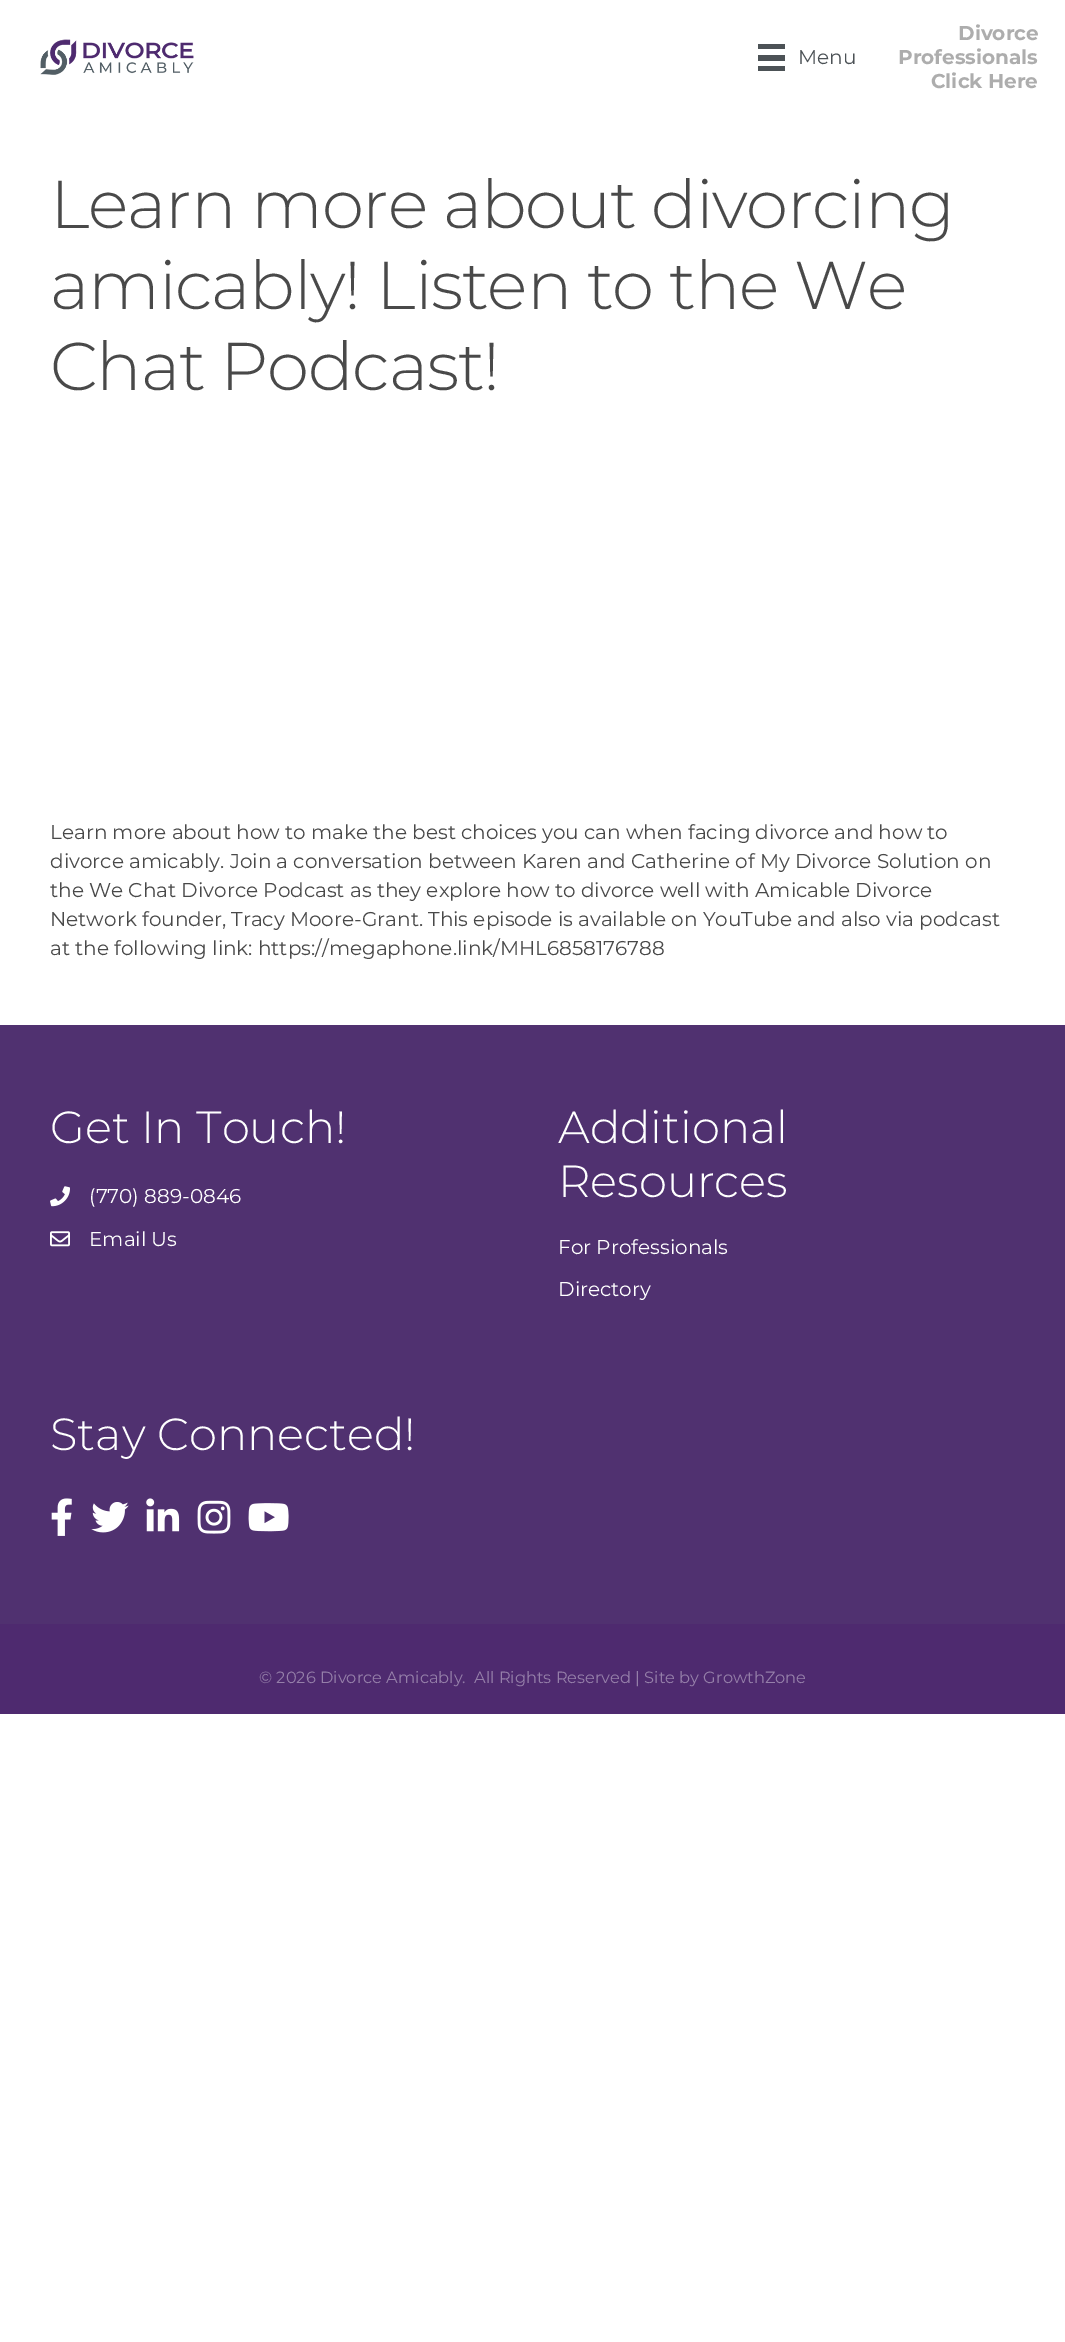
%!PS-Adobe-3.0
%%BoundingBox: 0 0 1065 2342
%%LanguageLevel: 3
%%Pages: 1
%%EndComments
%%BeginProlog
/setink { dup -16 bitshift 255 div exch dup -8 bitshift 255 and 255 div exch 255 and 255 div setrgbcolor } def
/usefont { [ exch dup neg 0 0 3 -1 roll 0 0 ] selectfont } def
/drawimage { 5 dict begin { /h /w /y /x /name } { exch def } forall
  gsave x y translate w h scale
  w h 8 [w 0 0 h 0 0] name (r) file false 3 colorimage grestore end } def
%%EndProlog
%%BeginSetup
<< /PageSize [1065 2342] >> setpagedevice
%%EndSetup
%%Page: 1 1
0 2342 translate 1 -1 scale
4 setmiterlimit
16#FFFFFF setink
0 0 1065 2342 rectfill
(img1.raw) 40 39 154 36 drawimage
[
    [758 44 27 5 16#4C5256]
    [758 55 27 6 16#4C5256]
    [758 66 27 5 16#4C5256]
] { aload pop setink rectfill } forall
/Montserrat-Regular 20 usefont
798 64 moveto (Menu) show
/Montserrat-Bold 20 usefont
16#ADADAD setink
[
    [(Divorce) 958 40]
    [(Professionals) 898 64]
    [(Click Here) 931 88]
] { aload pop moveto show } forall
/Montserrat-Light 67.5 usefont
16#494949 setink
50 228 moveto -1.25 0 (Learn more about divorcing) ashow
50 309 moveto -1.25 0 (amicably! Listen to the We) ashow
50 390 moveto -1.25 0 (Chat Podcast!) ashow
/Montserrat-Regular 20 usefont
[
    [(Learn more about how to make the best choices you can when facing divorce and how to) 50 839]
    [(divorce amicably. Join a conversation between Karen and Catherine of My Divorce Solution on) 50 868]
    [(the We Chat Divorce Podcast as they explore how to divorce well with Amicable Divorce) 50 897]
    [(Network founder, Tracy Moore-Grant. This episode is available on YouTube and also via podcast) 50 926]
    [(at the following link: https://megaphone.link/MHL6858176788) 50 955]
] { aload pop moveto show } forall
16#503170 setink
0 1025 1065 599 rectfill
/Montserrat-Light 45 usefont
16#FFFFFF setink
50 1143 moveto (Get In Touch!) show
(img2.raw) 50 1186 20 21 drawimage
/Montserrat-Regular 20 usefont
89 1203 moveto (\(770\) 889-0846) show
(img3.raw) 50 1231 20 16 drawimage
89 1246 moveto (Email Us) show
/Montserrat-Light 45 usefont
558 1143 moveto (Additional) show
558 1197 moveto (Resources) show
/Montserrat-Regular 20 usefont
558 1254 moveto (For Professionals) show
558 1296 moveto (Directory) show
/Montserrat-Light 45 usefont
50 1450 moveto (Stay Connected!) show
(img4.raw) 51 1498 21 38 drawimage
(img5.raw) 91 1502 38 31 drawimage
(img6.raw) 146 1498 34 34 drawimage
(img7.raw) 197 1500 34 34 drawimage
(img8.raw) 248 1503 41 29 drawimage
16#4E2A6F setink
0 1624 1065 90 rectfill
/Montserrat-Regular 16.25 usefont
16#957FA9 setink
259 1683 moveto (© 2026 Divorce Amicably.) show
474 1683 moveto (All Rights Reserved | Site by GrowthZone) show
showpage
%%EOF
